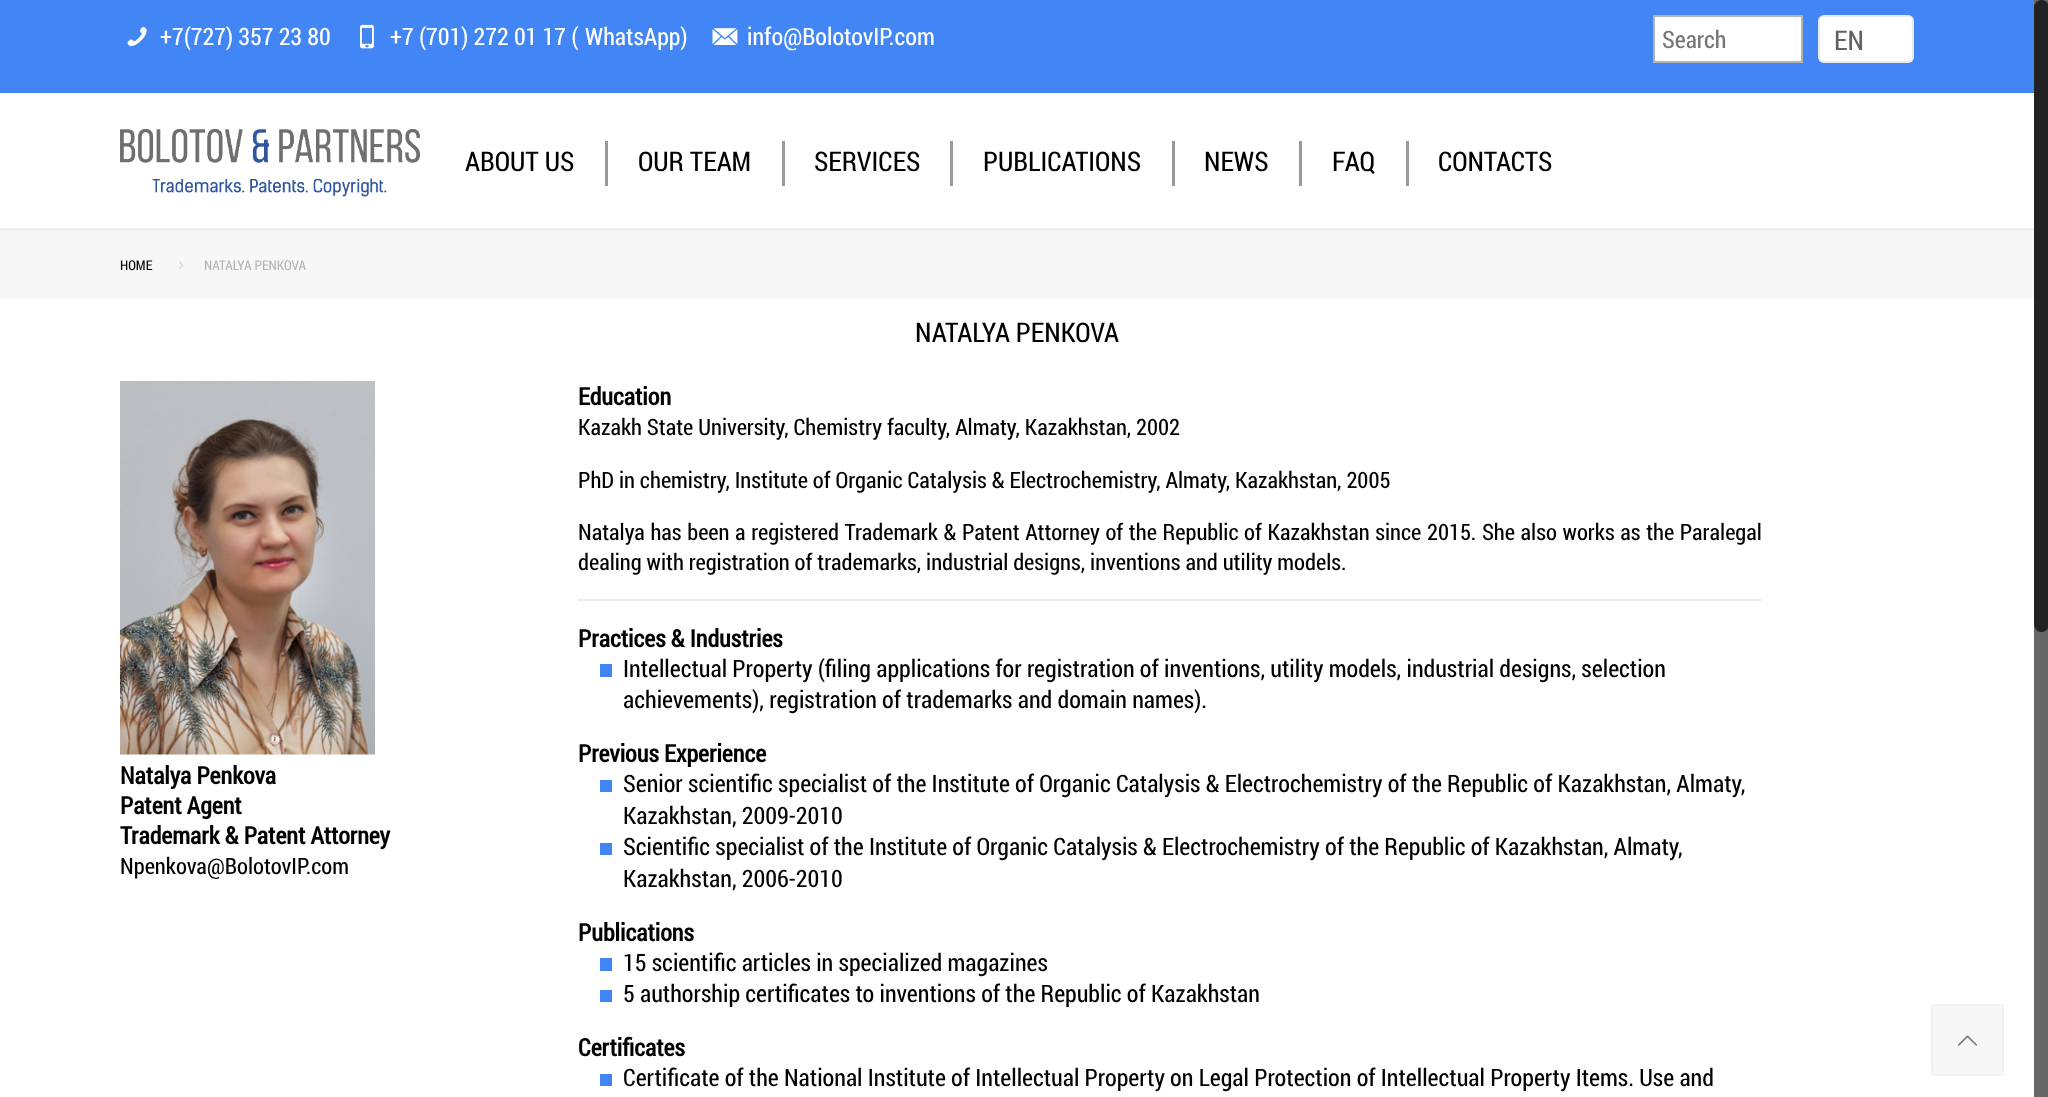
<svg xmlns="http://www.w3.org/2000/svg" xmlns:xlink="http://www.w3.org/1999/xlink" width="2048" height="1097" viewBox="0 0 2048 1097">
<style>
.cls-1{font:24px Roboto Condensed;fill:#ffffff}
.cls-2{font:24px Roboto Condensed;fill:#757575}
.cls-3{font:27px Roboto Condensed;fill:#626262}
.cls-4{font:27px Roboto Condensed;fill:#000000}
.cls-5{font:13.5px Roboto Condensed;fill:#000000}
.cls-6{font:13.5px Roboto Condensed;fill:#b4b4b4}
.cls-7{font:bold 24px Roboto Condensed;fill:#000000}
.cls-8{font:22.5px Roboto Condensed;fill:#000000}
.cls-9{font:24px Roboto Condensed;fill:#000000}
</style>
<rect width="100%" height="100%" fill="#ffffff"/>
<rect fill="#efefef" x="0" y="228" width="2034" height="3"/>
<rect fill="#4286f5" x="0" y="0" width="2034" height="93"/>
<image xlink:href="image0.png" x="127" y="27" width="20" height="20"/>
<image xlink:href="image1.png" x="360" y="24" width="14" height="25"/>
<image xlink:href="image2.png" x="712" y="28" width="26" height="17"/>
<rect fill="#ffffff" stroke="#b3b3b3" stroke-width="2" x="1654" y="16" width="148" height="46"/>
<rect fill="#ffffff" x="1818" y="15" width="96" height="48" rx="6"/>
<rect fill="none" stroke="#000000" stroke-opacity="0.08" stroke-width="2" x="1819" y="16" width="94" height="46" rx="5"/>
<image xlink:href="image3.png" x="120" y="129" width="300" height="68"/>
<rect fill="#999999" x="605" y="141" width="3" height="45"/>
<rect fill="#999999" x="782" y="141" width="3" height="45"/>
<rect fill="#999999" x="950" y="141" width="3" height="45"/>
<rect fill="#999999" x="1172" y="141" width="3" height="45"/>
<rect fill="#999999" x="1299" y="141" width="3" height="45"/>
<rect fill="#999999" x="1406" y="141" width="3" height="45"/>
<rect fill="#f7f7f7" x="0" y="231" width="2034" height="68"/>
<image xlink:href="image4.png" x="179" y="261" width="5" height="8"/>
<image xlink:href="image5.png" x="120" y="381" width="255" height="374"/>
<rect fill="#ebebeb" x="578" y="599" width="1183" height="2"/>
<rect fill="#4286f5" x="600" y="664" width="12" height="13"/>
<rect fill="#4286f5" x="600" y="780" width="12" height="12"/>
<rect fill="#4286f5" x="600" y="843" width="12" height="12"/>
<rect fill="#4286f5" x="600" y="958" width="12" height="13"/>
<rect fill="#4286f5" x="600" y="990" width="12" height="12"/>
<rect fill="#4286f5" x="600" y="1074" width="12" height="12"/>
<rect fill="#f7f7f7" x="1931" y="1004" width="73" height="72" rx="8"/>
<rect fill="none" stroke="#000000" stroke-opacity="0.03" stroke-width="2" x="1932" y="1005" width="71" height="70"/>
<image xlink:href="image6.png" x="1957" y="1035" width="21" height="11"/>
<rect fill="#666666" x="2034" y="0" width="14" height="1097"/>
<rect fill="#222222" x="2034" y="0" width="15" height="632" rx="7.5"/>
<text class="cls-1" x="160" y="45">+7(727) 357 23 80</text>
<text class="cls-1" x="390" y="45">+7 (701) 272 01 17 (</text>
<text class="cls-1" x="585" y="45">WhatsApp)</text>
<text class="cls-1" x="747" y="45">info@BolotovIP.com</text>
<text class="cls-2" x="1662" y="48">Search</text>
<text class="cls-3" x="1834" y="50">EN</text>
<text class="cls-4" x="465" y="171">ABOUT US</text>
<text class="cls-4" x="638" y="171">OUR TEAM</text>
<text class="cls-4" x="814" y="171">SERVICES</text>
<text class="cls-4" x="983" y="171">PUBLICATIONS</text>
<text class="cls-4" x="1204" y="171">NEWS</text>
<text class="cls-4" x="1332" y="171">FAQ</text>
<text class="cls-4" x="1438" y="171">CONTACTS</text>
<text class="cls-5" x="120" y="270">HOME</text>
<text class="cls-6" x="204" y="270">NATALYA PENKOVA</text>
<text class="cls-4" x="915" y="342">NATALYA PENKOVA</text>
<text class="cls-7"><tspan x="120" y="784">Natalya Penkova</tspan><tspan x="120" y="814">Patent Agent</tspan><tspan x="120" y="844">Trademark &amp; Patent Attorney</tspan></text>
<text class="cls-8" x="120" y="874">Npenkova@BolotovIP.com</text>
<text class="cls-7" x="578" y="405">Education</text>
<text class="cls-8" x="578" y="435">Kazakh State University, Chemistry faculty, Almaty, Kazakhstan, 2002</text>
<text class="cls-8" x="578" y="488">PhD in chemistry, Institute of Organic Catalysis &amp; Electrochemistry, Almaty, Kazakhstan, 2005</text>
<text class="cls-8"><tspan x="578" y="540" word-spacing="0.7">Natalya has been a registered Trademark &amp; Patent Attorney of the Republic of Kazakhstan since 2015. She also works as the Paralegal</tspan><tspan x="578" y="570">dealing with registration of trademarks, industrial designs, inventions and utility models.</tspan></text>
<text class="cls-7" x="578" y="647">Practices &amp; Industries</text>
<text class="cls-9"><tspan x="623" y="677">Intellectual Property (filing applications for registration of inventions, utility models, industrial designs, selection</tspan><tspan x="623" y="708">achievements), registration of trademarks and domain names).</tspan></text>
<text class="cls-7" x="578" y="762">Previous Experience</text>
<text class="cls-9"><tspan x="623" y="792">Senior scientific specialist of the Institute of Organic Catalysis &amp; Electrochemistry of the Republic of Kazakhstan, Almaty,</tspan><tspan x="623" y="824">Kazakhstan, 2009-2010</tspan><tspan x="623" y="855">Scientific specialist of the Institute of Organic Catalysis &amp; Electrochemistry of the Republic of Kazakhstan, Almaty,</tspan><tspan x="623" y="887">Kazakhstan, 2006-2010</tspan></text>
<text class="cls-7" x="578" y="941">Publications</text>
<text class="cls-9"><tspan x="623" y="971">15 scientific articles in specialized magazines</tspan><tspan x="623" y="1002">5 authorship certificates to inventions of the Republic of Kazakhstan</tspan></text>
<text class="cls-7" x="578" y="1056">Certificates</text>
<text class="cls-9" x="623" y="1086">Certificate of the National Institute of Intellectual Property on Legal Protection of Intellectual Property Items. Use and</text>
</svg>
